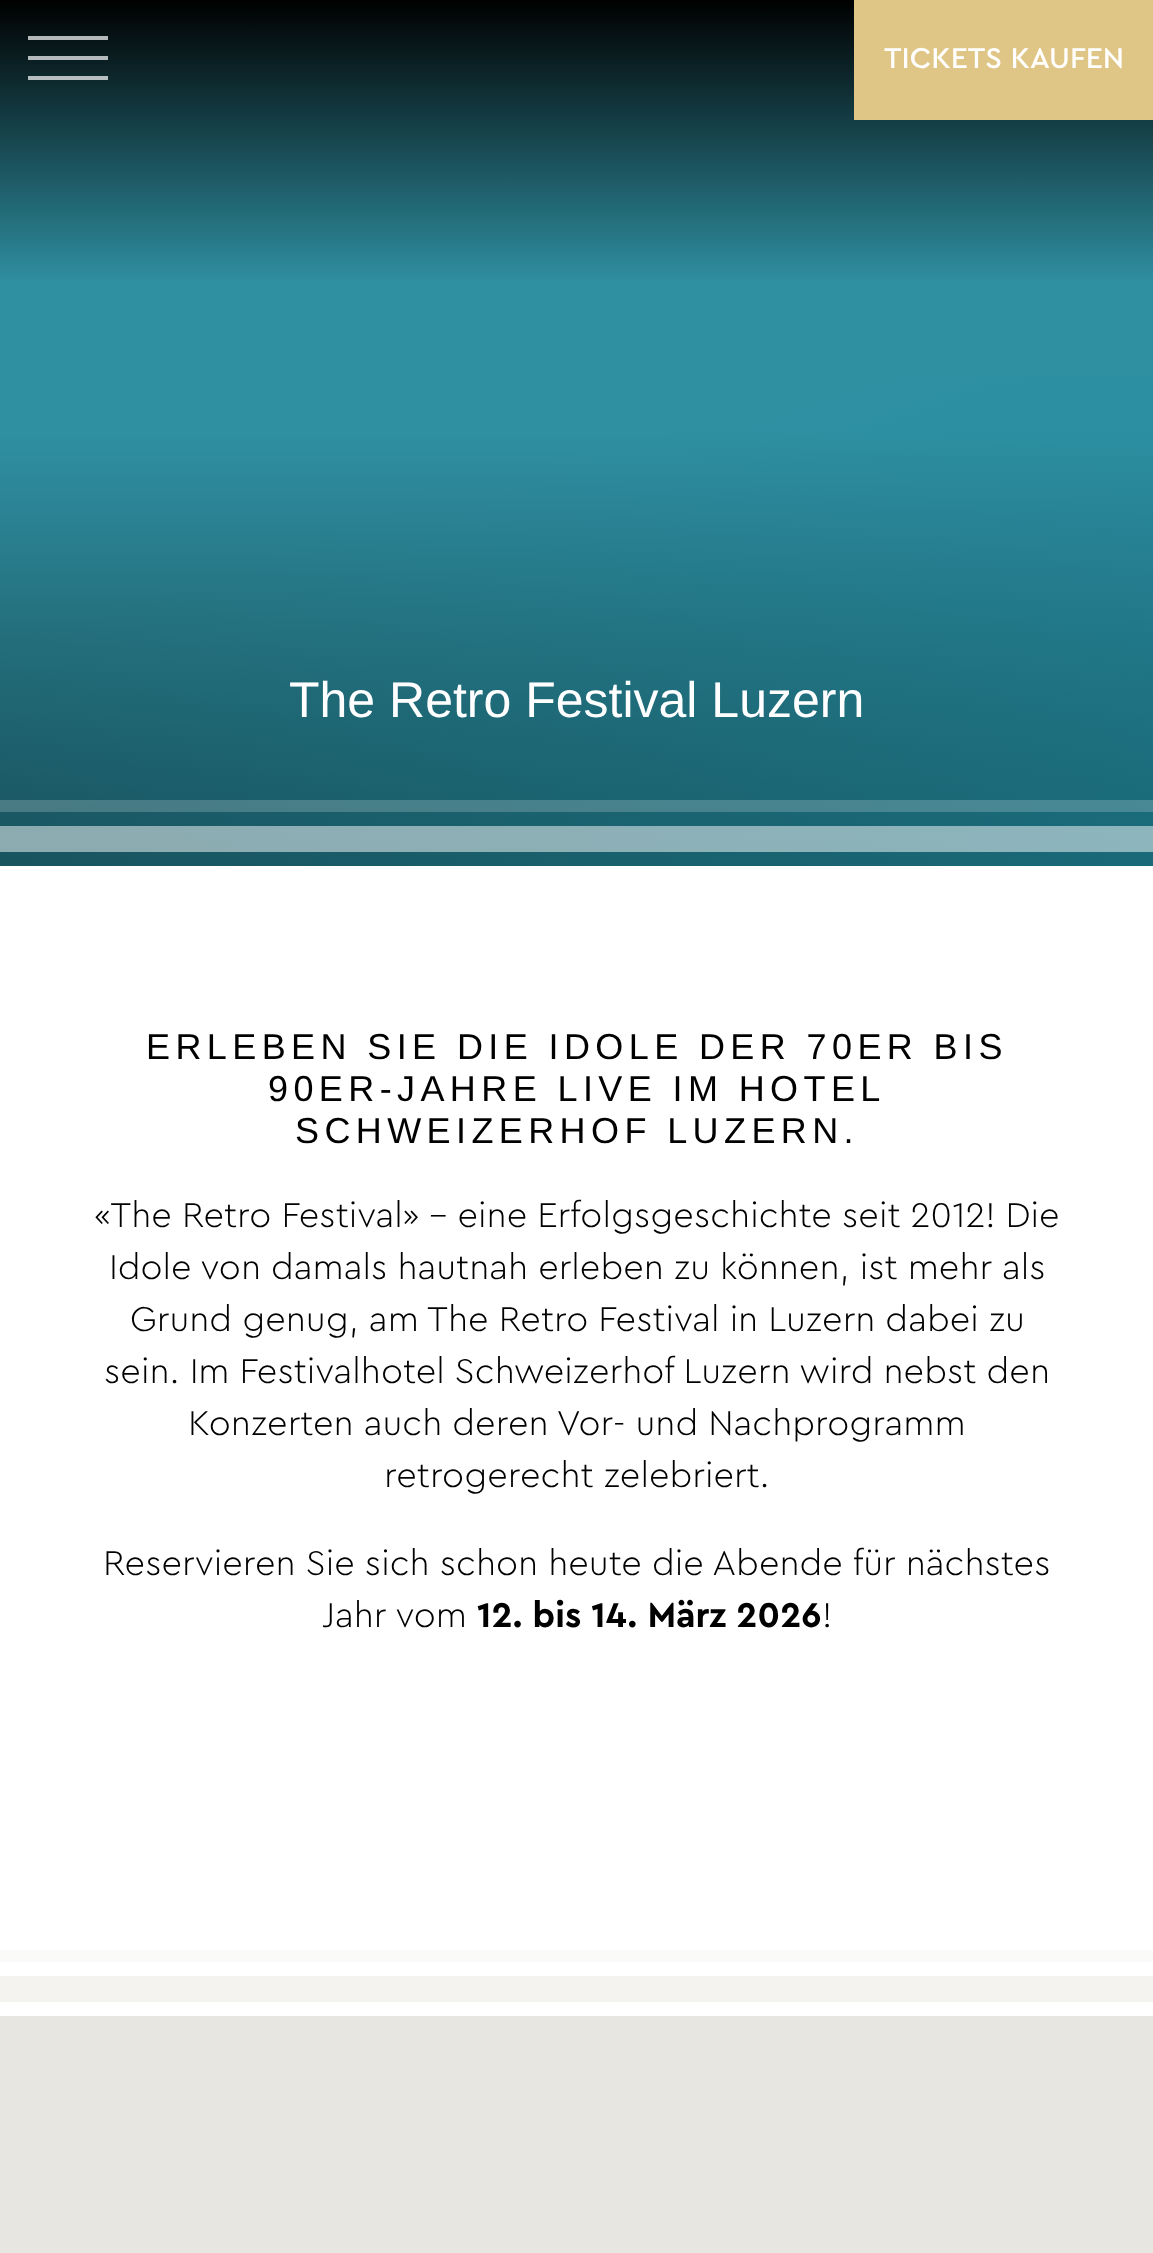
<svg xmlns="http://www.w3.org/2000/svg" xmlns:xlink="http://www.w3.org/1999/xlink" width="1153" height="2253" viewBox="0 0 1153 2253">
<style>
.cls-1{font:500 30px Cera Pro;fill:#ffffff}
.cls-2{font:50px Liberation Sans;fill:#ffffff}
.cls-3{font:36px Liberation Sans;letter-spacing:5.4px;fill:#000000}
.cls-4{font:300 36px Cera Pro;fill:#000000}
.cls-5{font:bold 36px Cera Pro;fill:#000000}
</style>
<defs>
<linearGradient id="g1" gradientUnits="userSpaceOnUse" x1="577" y1="866" x2="577" y2="0"><stop offset="0" stop-color="#174851"/><stop offset="0.5" stop-color="#2f90a2"/></linearGradient>
<linearGradient id="g2" gradientUnits="userSpaceOnUse" x1="577" y1="0" x2="577" y2="866"><stop offset="0" stop-color="#000000"/><stop offset="0.33" stop-color="#000000" stop-opacity="0"/></linearGradient>
<linearGradient id="g3" gradientUnits="userSpaceOnUse" x1="784" y1="1001" x2="370" y2="-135"><stop offset="0" stop-color="#1b8ba0" stop-opacity="0.5"/><stop offset="0.5" stop-color="#1b8ba0" stop-opacity="0"/></linearGradient>
</defs>
<rect width="100%" height="100%" fill="#ffffff"/>
<rect fill="url(#g1)" x="0" y="2" width="1153" height="864"/>
<rect fill="url(#g2)" x="0" y="0" width="1153" height="280"/>
<rect fill="#b5bbbc" x="28" y="56" width="80" height="4"/>
<rect fill="#b4b8b9" x="28" y="36" width="80" height="4"/>
<rect fill="#b6bec0" x="28" y="76" width="80" height="4"/>
<rect fill="#e0c686" x="854" y="0" width="299" height="120"/>
<rect fill="url(#g3)" x="0" y="377" width="1153" height="489"/>
<rect fill="#ffffff" fill-opacity="0.2" x="0" y="800" width="1153" height="12"/>
<rect fill="#ffffff" fill-opacity="0.5" x="0" y="826" width="1153" height="26"/>
<rect fill="#fafaf9" x="0" y="1950" width="1153" height="12"/>
<rect fill="#f4f3f0" x="0" y="1976" width="1153" height="26"/>
<rect fill="#e8e6e1" x="0" y="2016" width="1153" height="237"/>
<text class="cls-1" x="884" y="68">TICKETS KAUFEN</text>
<text class="cls-2" x="289" y="717">The Retro Festival Luzern</text>
<text class="cls-3" x="146" y="1059">ERLEBEN SIE DIE IDOLE DER 70ER BIS</text>
<text class="cls-3" x="268" y="1101">90ER-JAHRE LIVE IM HOTEL</text>
<text class="cls-3" x="295" y="1143">SCHWEIZERHOF LUZERN.</text>
<text class="cls-4" x="94" y="1227">«The Retro Festival» – eine Erfolgsgeschichte seit 2012! Die</text>
<text class="cls-4" x="109" y="1279">Idole von damals hautnah erleben zu können, ist mehr als</text>
<text class="cls-4" x="130" y="1331">Grund genug, am The Retro Festival in Luzern dabei zu</text>
<text class="cls-4" x="104" y="1383">sein. Im Festivalhotel Schweizerhof Luzern wird nebst den</text>
<text class="cls-4" x="188" y="1435">Konzerten auch deren Vor- und Nachprogramm</text>
<text class="cls-4" x="384" y="1487">retrogerecht zelebriert.</text>
<text class="cls-4" x="103" y="1575">Reservieren Sie sich schon heute die Abende für nächstes</text>
<text class="cls-4" x="322" y="1627">Jahr vom</text>
<text class="cls-5" x="477" y="1627">12. bis 14. März 2026</text>
<text class="cls-4" x="822" y="1627">!</text>
</svg>
